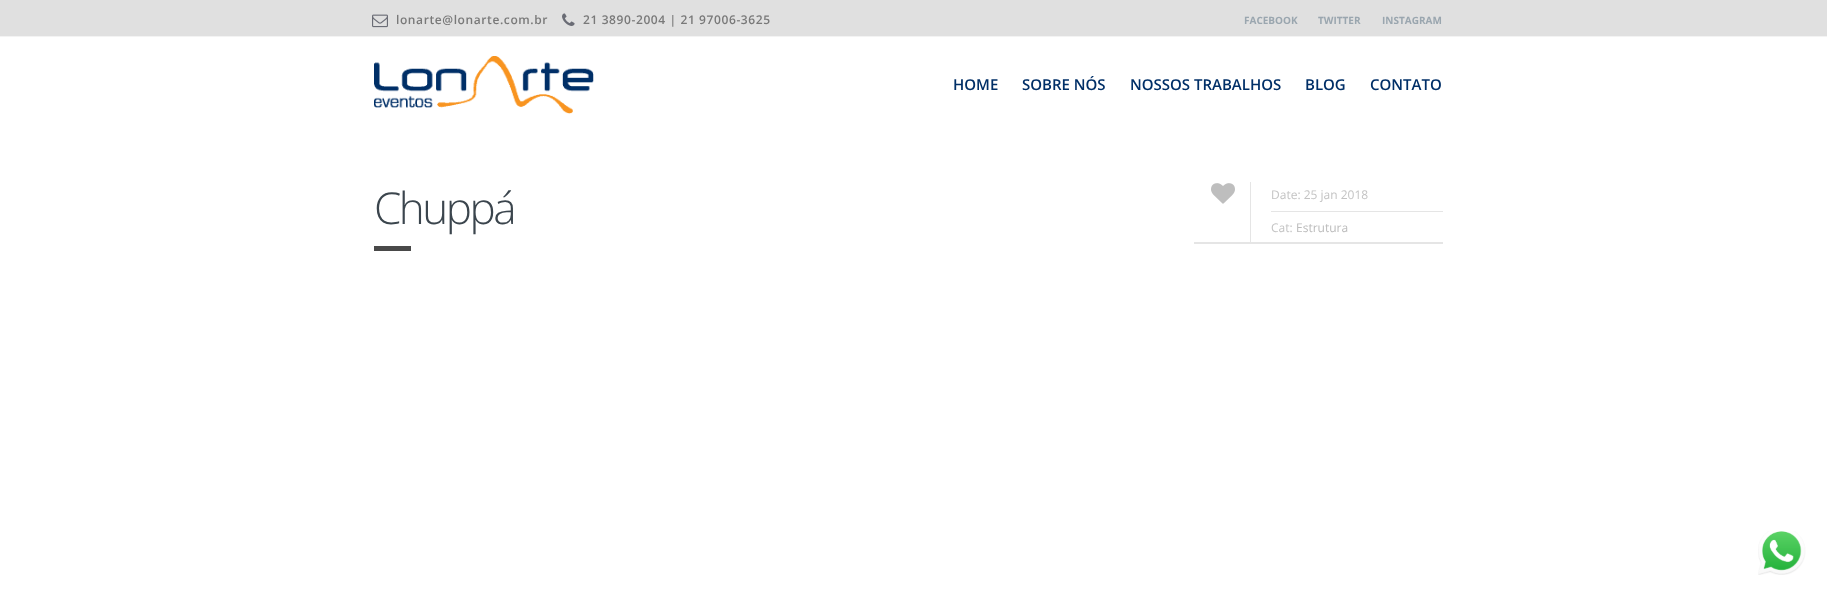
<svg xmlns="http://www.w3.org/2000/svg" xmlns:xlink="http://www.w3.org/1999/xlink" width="1827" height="597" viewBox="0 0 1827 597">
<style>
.cls-1{font:600 12px Open Sans;letter-spacing:0.6px;fill:#797979}
.cls-2{font:bold 10px Open Sans;fill:#9aa6af}
.cls-3{font:600 15px Open Sans;fill:#002f67}
.cls-4{font:300 44px Open Sans;letter-spacing:-2.5px;fill:#3b454d}
.cls-5{font:12px Open Sans;fill:#c3c3c3}
.cls-6{font:12px Open Sans;fill:#bbbbbb}
</style>
<rect width="100%" height="100%" fill="#ffffff"/>
<rect fill="#e0e0e0" x="0" y="0" width="1827" height="36"/>
<rect fill="#f3f3f3" x="0" y="36" width="1827" height="1"/>
<image xlink:href="image0.png" x="372" y="14" width="16" height="14"/>
<image xlink:href="image1.png" x="562" y="13" width="13" height="13"/>
<image xlink:href="image2.png" x="374" y="56" width="220" height="58"/>
<rect fill="#494949" x="374" y="246" width="37" height="5"/>
<rect fill="#e5e5e5" x="1194" y="242" width="249" height="2"/>
<image xlink:href="image3.png" x="1211" y="183" width="24" height="21"/>
<rect fill="#e5e5e5" x="1250" y="182" width="1" height="62"/>
<rect fill="#e5e5e5" x="1271" y="211" width="172" height="1"/>
<image xlink:href="image4.png" x="1758" y="531" width="48" height="44"/>
<text class="cls-1" x="396" y="24">lonarte@lonarte.com.br</text>
<text class="cls-1" x="583" y="24">21 3890-2004 | 21 97006-3625</text>
<text class="cls-2" x="1244" y="24">FACEBOOK</text>
<text class="cls-2" x="1318" y="24">TWITTER</text>
<text class="cls-2" x="1382" y="24">INSTAGRAM</text>
<text class="cls-3" x="953" y="90">HOME</text>
<text class="cls-3" x="1022" y="90">SOBRE NÓS</text>
<text class="cls-3" x="1130" y="90">NOSSOS TRABALHOS</text>
<text class="cls-3" x="1305" y="90">BLOG</text>
<text class="cls-3" x="1370" y="90">CONTATO</text>
<text class="cls-4" x="374" y="224">Chuppá</text>
<text class="cls-5" x="1271" y="199">Date: 25 jan 2018</text>
<text class="cls-5" x="1271" y="232">Cat:</text>
<text class="cls-6" x="1296" y="232">Estrutura</text>
</svg>
